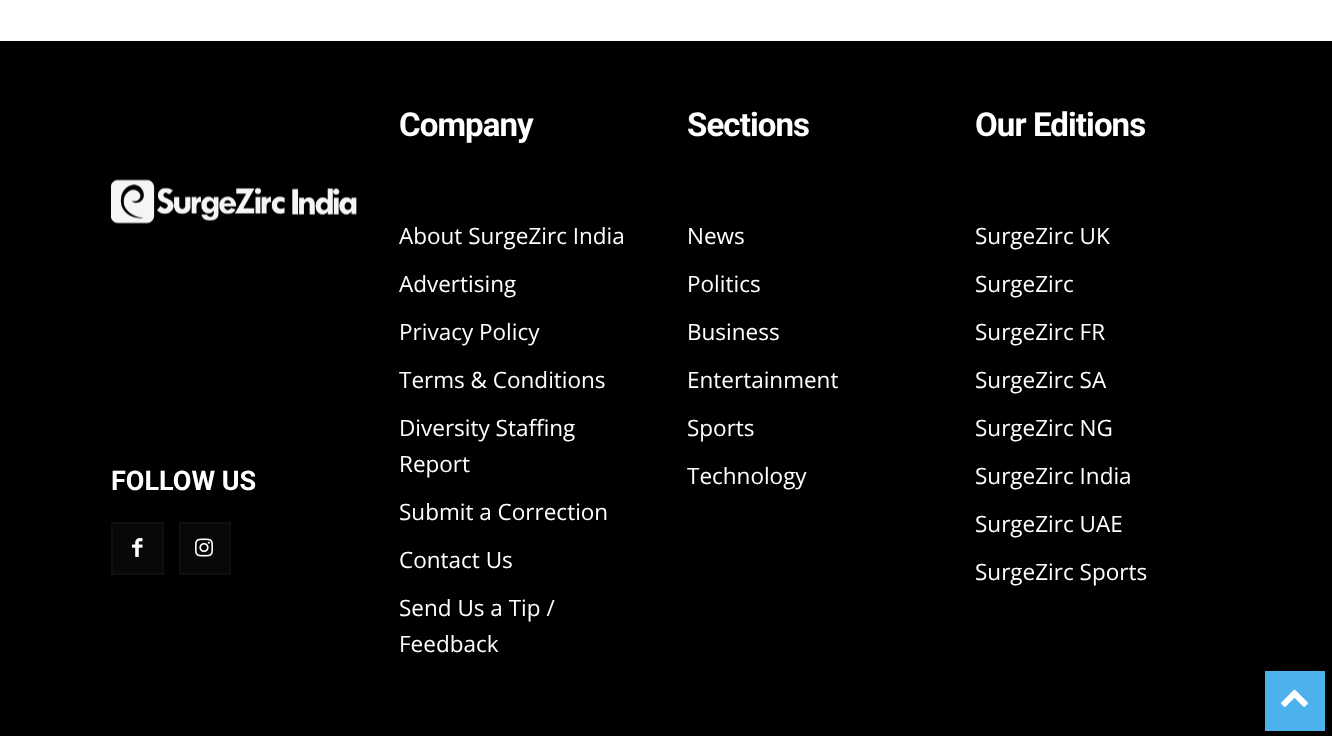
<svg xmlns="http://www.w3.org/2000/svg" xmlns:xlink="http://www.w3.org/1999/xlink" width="1332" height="736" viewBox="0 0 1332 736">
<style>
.cls-1{font:bold 27px Roboto;fill:#ffffff}
.cls-2{font:bold 33px Roboto;letter-spacing:-0.9px;fill:#ffffff}
.cls-3{font:22.5px Open Sans;fill:#ffffff}
</style>
<rect width="100%" height="100%" fill="#ffffff"/>
<rect fill="#000000" x="0" y="41" width="1332" height="695"/>
<image xlink:href="image0.png" x="111" y="179" width="246" height="45"/>
<rect fill="#080808" stroke="#0f0f0f" stroke-width="2" x="112" y="523" width="51" height="51"/>
<image xlink:href="image1.png" x="132" y="538" width="11" height="19"/>
<rect fill="#080808" stroke="#0f0f0f" stroke-width="2" x="180" y="523" width="50" height="51"/>
<image xlink:href="image2.png" x="195" y="538" width="18" height="19"/>
<rect fill="#4db2ec" x="1265" y="671" width="60" height="60"/>
<image xlink:href="image3.png" x="1281" y="689" width="27" height="18"/>
<text class="cls-1" x="111" y="490">FOLLOW US</text>
<text class="cls-2" x="399" y="136">Company</text>
<text class="cls-3" x="399" y="244">About SurgeZirc India</text>
<text class="cls-3" x="399" y="292">Advertising</text>
<text class="cls-3" x="399" y="340">Privacy Policy</text>
<text class="cls-3" x="399" y="388">Terms &amp; Conditions</text>
<text class="cls-3"><tspan x="399" y="436">Diversity Staffing</tspan><tspan x="399" y="472">Report</tspan></text>
<text class="cls-3" x="399" y="520">Submit a Correction</text>
<text class="cls-3" x="399" y="568">Contact Us</text>
<text class="cls-3"><tspan x="399" y="616">Send Us a Tip /</tspan><tspan x="399" y="652">Feedback</tspan></text>
<text class="cls-2" x="687" y="136">Sections</text>
<text class="cls-3" x="687" y="244">News</text>
<text class="cls-3" x="687" y="292">Politics</text>
<text class="cls-3" x="687" y="340">Business</text>
<text class="cls-3" x="687" y="388">Entertainment</text>
<text class="cls-3" x="687" y="436">Sports</text>
<text class="cls-3" x="687" y="484">Technology</text>
<text class="cls-2" x="975" y="136">Our Editions</text>
<text class="cls-3" x="975" y="244">SurgeZirc UK</text>
<text class="cls-3" x="975" y="292">SurgeZirc</text>
<text class="cls-3" x="975" y="340">SurgeZirc FR</text>
<text class="cls-3" x="975" y="388">SurgeZirc SA</text>
<text class="cls-3" x="975" y="436">SurgeZirc NG</text>
<text class="cls-3" x="975" y="484">SurgeZirc India</text>
<text class="cls-3" x="975" y="532">SurgeZirc UAE</text>
<text class="cls-3" x="975" y="580">SurgeZirc Sports</text>
</svg>
